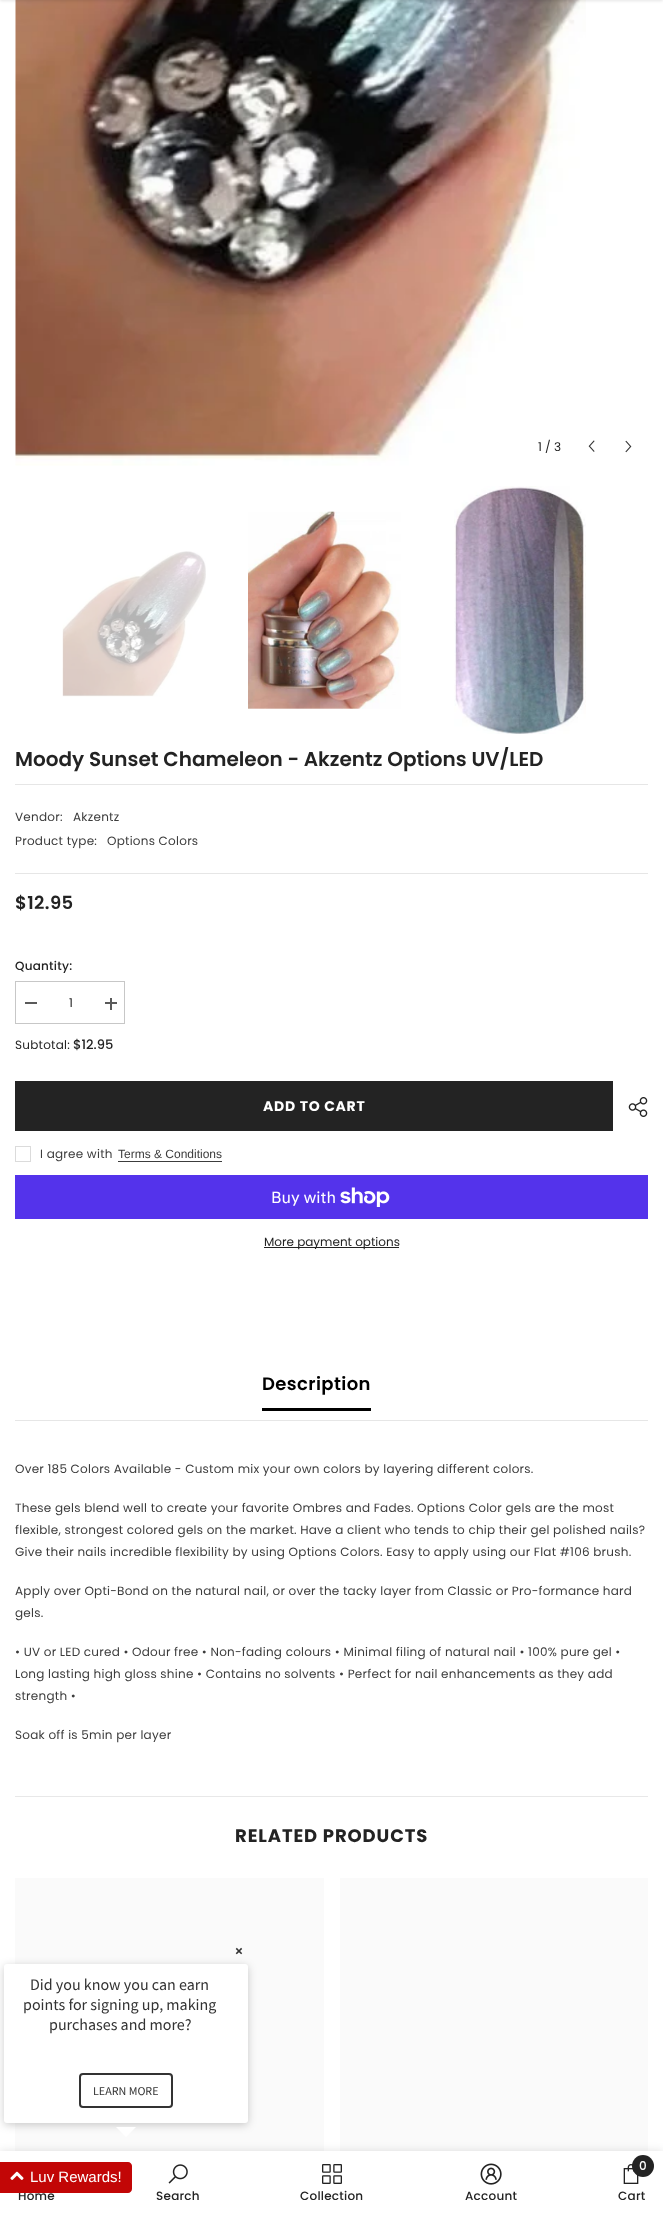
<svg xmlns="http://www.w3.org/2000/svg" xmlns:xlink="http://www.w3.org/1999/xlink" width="663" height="2213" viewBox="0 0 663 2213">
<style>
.cls-1{font:12px Poppins;fill:#232323}
.cls-2{font:600 20px Poppins;fill:#232323}
.cls-3{font:12px Poppins;letter-spacing:0.24px;fill:#3c3c3c}
.cls-4{font:600 18px Poppins;letter-spacing:0.4px;fill:#232323}
.cls-5{font:500 12px Poppins;letter-spacing:0.24px;fill:#232323}
.cls-6{font:12px Poppins;letter-spacing:0.24px;fill:#232323}
.cls-7{font:500 13px Poppins;fill:#232323}
.cls-8{font:bold 14px Poppins;letter-spacing:0.75px;fill:#ffffff}
.cls-9{font:12px Liberation Sans;fill:#3c3c3c}
.cls-10{font:16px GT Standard;fill:#ffffff}
.cls-11{font:600 18px Poppins;letter-spacing:0.4px;fill:#000000}
.cls-12{font:bold 18px Poppins;letter-spacing:0.9px;fill:#232323}
.cls-13{font:500 12px Poppins;fill:#ffffff}
.cls-14{font:bold 15px Source Sans Pro;fill:#333333}
.cls-15{font:16px Source Sans Pro;fill:#333333}
.cls-16{font:12px Source Sans Pro;fill:#333333}
.cls-17{font:15px Liberation Sans;fill:#ffffff}
</style>
<rect width="100%" height="100%" fill="#ffffff"/>
<image xlink:href="image0.png" x="15" y="0" width="571" height="466"/>
<rect fill="#000000" fill-opacity="0.1" filter="blur(1.5px)" x="0" y="-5" width="663" height="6"/>
<image xlink:href="image1.png" x="588" y="440" width="7" height="12"/>
<image xlink:href="image2.png" x="625" y="440" width="7" height="13"/>
<image xlink:href="image3.png" x="62" y="551" width="144" height="146"/>
<image xlink:href="image4.png" x="248" y="511" width="153" height="198"/>
<image xlink:href="image5.png" x="454" y="486" width="132" height="248"/>
<rect fill="#e6e6e6" x="15" y="784" width="633" height="1"/>
<rect fill="#e6e6e6" x="15" y="873" width="633" height="1"/>
<rect fill="none" stroke="#c7c7c7" x="15.5" y="981.5" width="109" height="42"/>
<rect fill="#5a5a5a" x="25" y="1002" width="12" height="2"/>
<rect fill="#5a5a5a" x="105" y="1002" width="12" height="2"/>
<rect fill="#5a5a5a" x="110" y="998" width="2" height="12"/>
<rect fill="#232323" x="15" y="1081" width="598" height="50"/>
<image xlink:href="image6.png" x="628" y="1097" width="20" height="20"/>
<rect fill="none" stroke="#dbdbdb" x="15.5" y="1146.5" width="15" height="15"/>
<rect fill="#3c3c3c" x="118" y="1161" width="104" height="1"/>
<rect fill="#5433eb" x="15" y="1175" width="633" height="44"/>
<image xlink:href="image7.png" x="340" y="1187" width="50" height="20"/>
<rect fill="#232323" x="264" y="1247" width="135" height="1"/>
<rect fill="#e6e6e6" x="15" y="1420" width="633" height="1"/>
<rect fill="#000000" x="262" y="1408" width="109" height="3"/>
<rect fill="#e8e8e8" x="15" y="1796" width="633" height="1"/>
<rect fill="#fafafa" x="15" y="1878" width="309" height="273"/>
<rect fill="#fafafa" x="340" y="1878" width="308" height="273"/>
<rect fill="#000000" fill-opacity="0.12" filter="blur(4.5px)" x="0" y="2151" width="663" height="62"/>
<rect fill="#ffffff" x="0" y="2151" width="663" height="62"/>
<image xlink:href="image8.png" x="168" y="2164" width="20" height="20"/>
<image xlink:href="image9.png" x="322" y="2164" width="20" height="20"/>
<image xlink:href="image10.png" x="480" y="2163" width="22" height="22"/>
<image xlink:href="image11.png" x="623" y="2164" width="16" height="20"/>
<circle fill="#232323" cx="643" cy="2166" r="11"/>
<rect fill="#000000" fill-opacity="0.2" filter="blur(4px)" x="4" y="1966" width="244" height="159" rx="3"/>
<rect fill="#ffffff" x="4" y="1964" width="244" height="159" rx="3"/>
<rect fill="none" stroke="#333333" stroke-width="2" x="80" y="2074" width="92" height="33" rx="3"/>
<path fill="#ffffff" d="M116 2127H136L126 2137Z"/>
<text class="cls-1" x="538" y="451">1 / 3</text>
<text class="cls-2" x="15" y="766">Moody Sunset Chameleon - Akzentz Options UV/LED</text>
<text class="cls-3" x="15" y="821">Vendor:</text>
<text class="cls-3" x="73" y="821">Akzentz</text>
<text class="cls-3" x="15" y="845">Product type:</text>
<text class="cls-3" x="107" y="845">Options Colors</text>
<text class="cls-4" x="15" y="909">$12.95</text>
<text class="cls-5" x="15" y="970">Quantity:</text>
<text class="cls-6" x="69" y="1007">1</text>
<text class="cls-6" x="15" y="1049">Subtotal:</text>
<text class="cls-7" x="73" y="1049">$12.95</text>
<text class="cls-8" x="263" y="1111">ADD TO CART</text>
<text class="cls-3" x="40" y="1158">I agree with</text>
<text class="cls-9" x="118" y="1158">Terms &amp; Conditions</text>
<text class="cls-10" x="271" y="1203">Buy with</text>
<text class="cls-1" x="264" y="1246">More payment options</text>
<text class="cls-11" x="262" y="1390">Description</text>
<text class="cls-3" x="15" y="1473">Over 185 Colors Available - Custom mix your own colors by layering different colors.</text>
<text class="cls-3"><tspan x="15" y="1512">These gels blend well to create your favorite Ombres and Fades. Options Color gels are the most</tspan><tspan x="15" y="1534">flexible, strongest colored gels on the market. Have a client who tends to chip their gel polished nails?</tspan><tspan x="15" y="1556">Give their nails incredible flexibility by using Options Colors. Easy to apply using our Flat #106 brush.</tspan></text>
<text class="cls-3"><tspan x="15" y="1595">Apply over Opti-Bond on the natural nail, or over the tacky layer from Classic or Pro-formance hard</tspan><tspan x="15" y="1617">gels.</tspan></text>
<text class="cls-3"><tspan x="15" y="1656">• UV or LED cured • Odour free • Non-fading colours • Minimal filing of natural nail • 100% pure gel •</tspan><tspan x="15" y="1678">Long lasting high gloss shine • Contains no solvents • Perfect for nail enhancements as they add</tspan><tspan x="15" y="1700">strength •</tspan></text>
<text class="cls-3" x="15" y="1739">Soak off is 5min per layer</text>
<text class="cls-12" x="235" y="1842">RELATED PRODUCTS</text>
<text class="cls-5" x="18" y="2200">Home</text>
<text class="cls-5" x="156" y="2200">Search</text>
<text class="cls-5" x="300" y="2200">Collection</text>
<text class="cls-5" x="465" y="2200">Account</text>
<text class="cls-13" x="639" y="2170">0</text>
<text class="cls-5" x="618" y="2200">Cart</text>
<text class="cls-14" x="235" y="1956">×</text>
<text class="cls-15" x="30" y="1990">Did you know you can earn</text>
<text class="cls-15" x="23" y="2010">points for signing up, making</text>
<text class="cls-15" x="49" y="2030">purchases and more?</text>
<text class="cls-16" x="93" y="2095">LEARN MORE</text>
<path fill="#c20606" d="M0 2162H128C130 2162 132 2164 132 2166V2189C132 2191 130 2193 128 2193H0Z"/>
<image xlink:href="image12.png" x="10" y="2171" width="14" height="9"/>
<text class="cls-17" x="30" y="2182">Luv Rewards!</text>
</svg>
